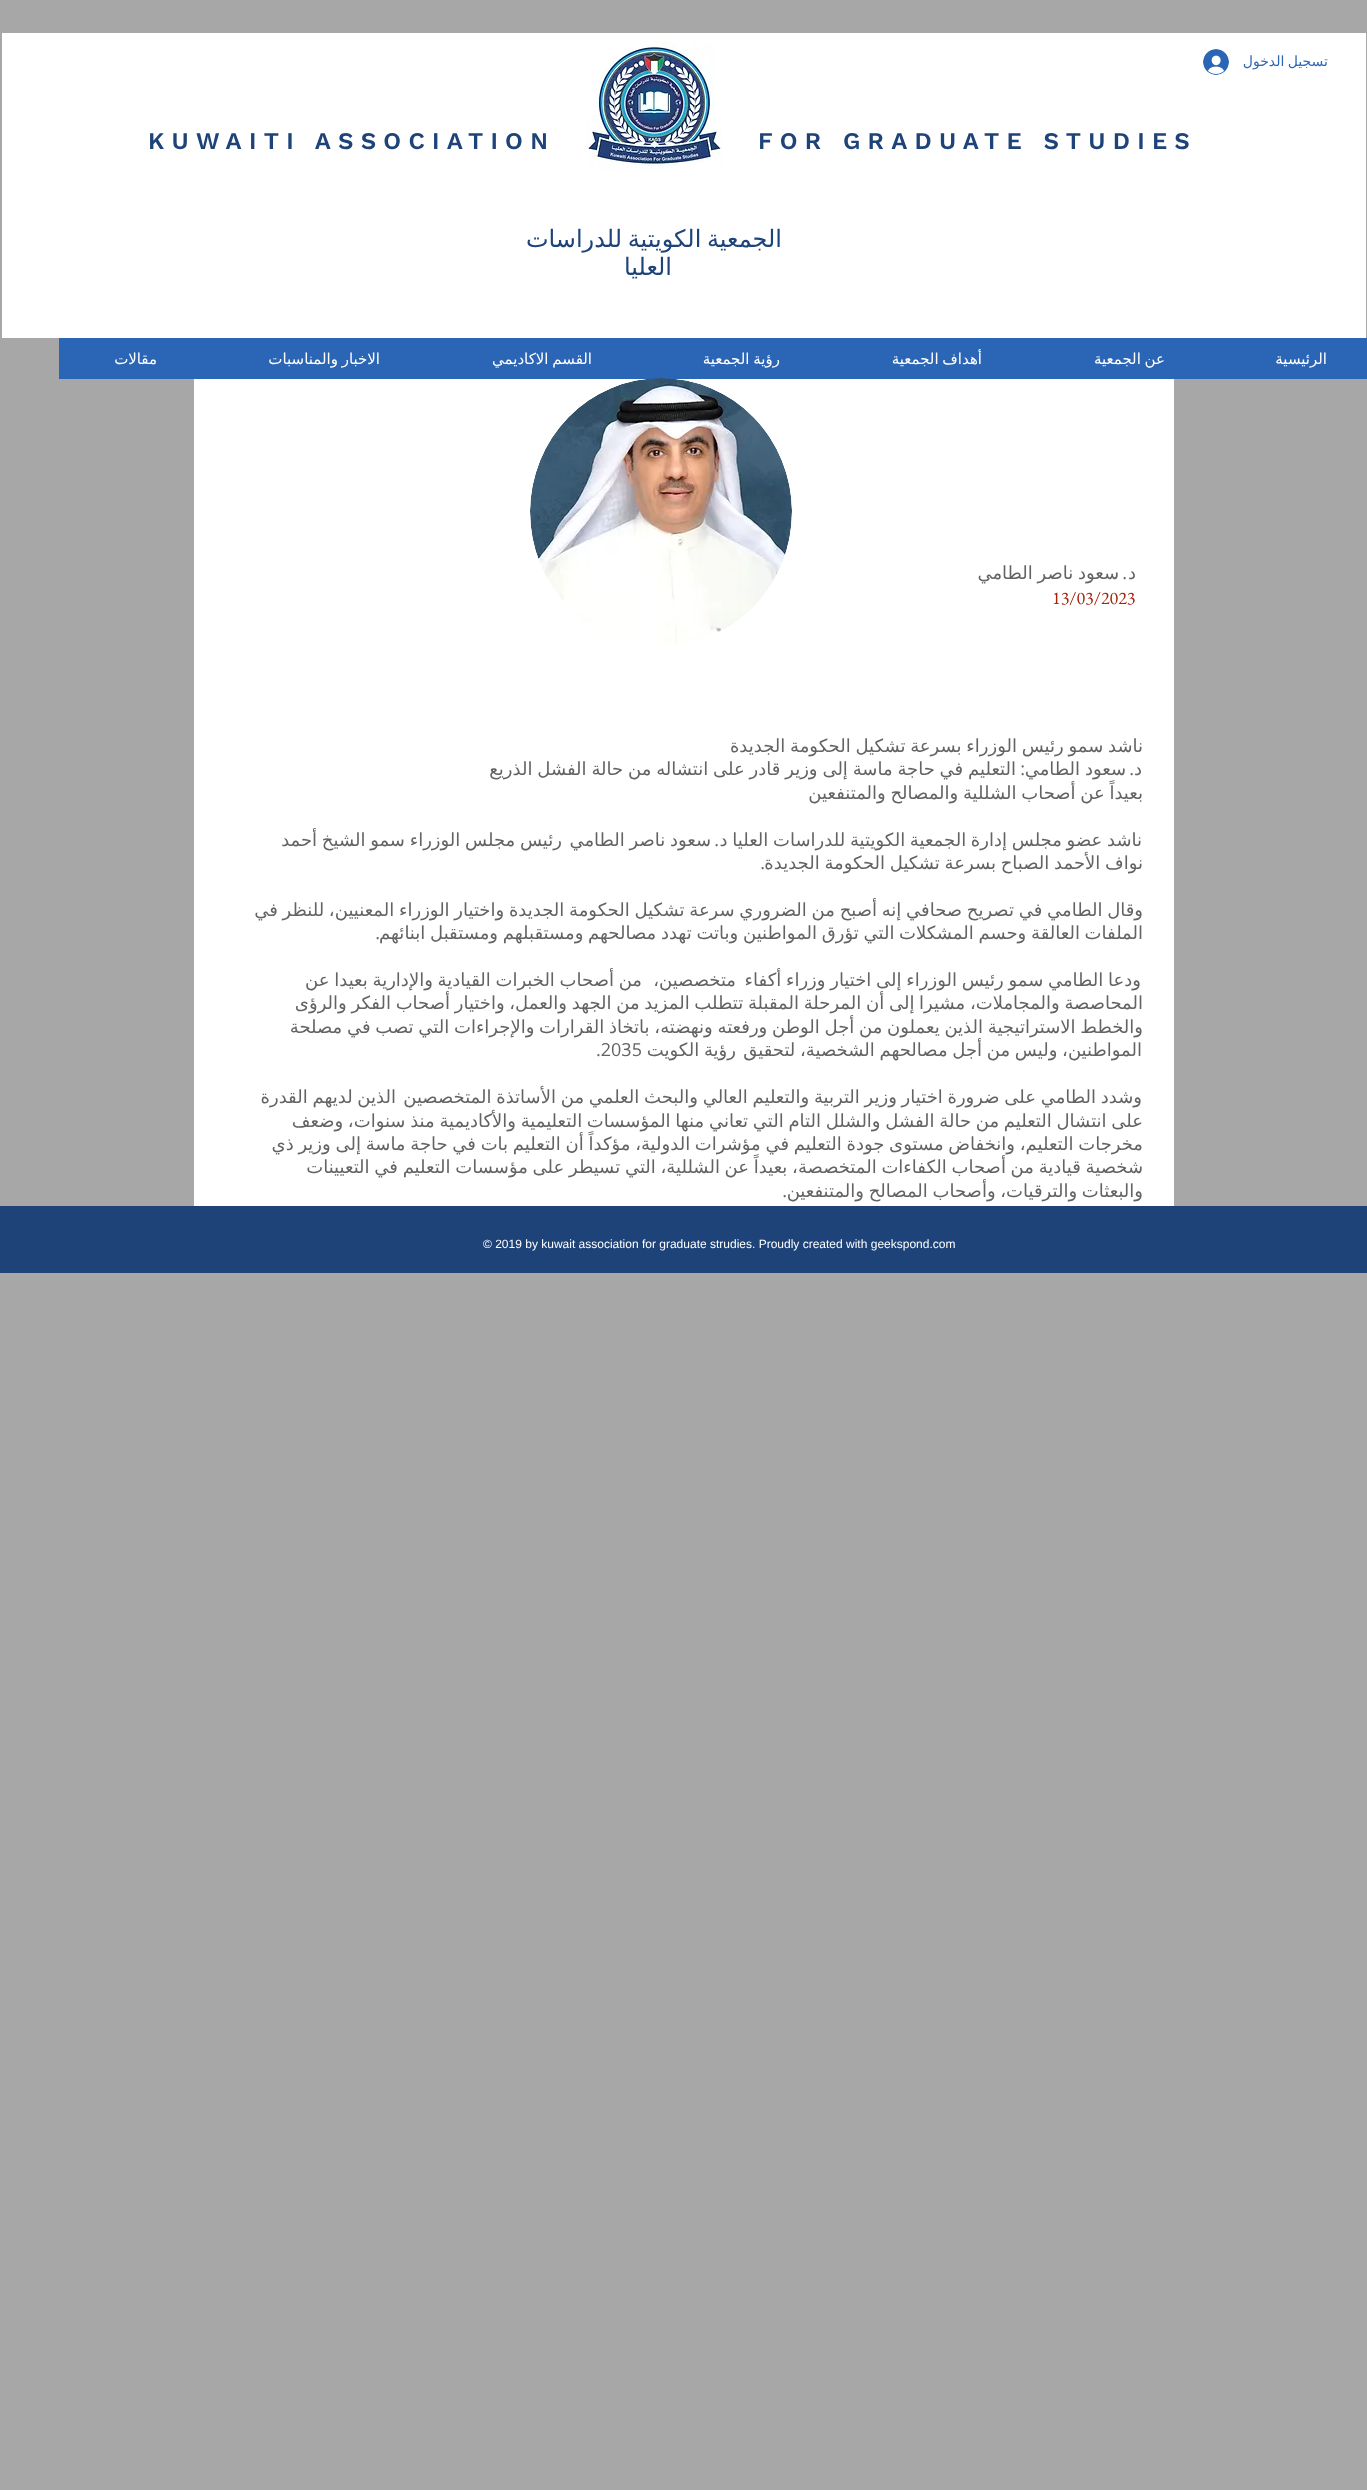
<svg xmlns="http://www.w3.org/2000/svg" xmlns:xlink="http://www.w3.org/1999/xlink" width="1367" height="2490" viewBox="0 0 1367 2490">
<style>
.cls-1{font:14px DejaVu Sans;direction:rtl;fill:#2b65b5}
.cls-2{font:600 24px Work Sans;letter-spacing:7.25px;fill:#1d4379}
.cls-3{font:24px DejaVu Sans;direction:rtl;fill:#1d4379}
.cls-4{font:15px DejaVu Sans;direction:rtl;fill:#ffffff}
.cls-5{font:18px DejaVu Sans;direction:rtl;fill:#636363}
.cls-6{font:18px Open Sans;direction:rtl;fill:#636363}
.cls-7{font:18px EB Garamond;fill:#a2230a}
.cls-8{font:18px Open Sans;fill:#636363}
.cls-9{font:12px Liberation Sans;fill:#ffffff}
</style>
<rect width="100%" height="100%" fill="#a7a7a7"/>
<rect fill="#ffffff" x="2" y="33" width="1364" height="305"/>
<image xlink:href="image0.png" x="1203" y="49" width="26" height="26"/>
<image xlink:href="image1.png" x="586" y="42" width="136" height="128"/>
<rect fill="#2b65b5" x="59" y="338" width="1308" height="41"/>
<rect fill="#ffffff" x="194" y="379" width="980" height="827"/>
<image xlink:href="image2.png" x="530" y="378" width="262" height="268"/>
<rect fill="#1d4379" x="0" y="1206" width="1367" height="67"/>
<text class="cls-1" x="1328" y="66" word-spacing="-1">تسجيل الدخول</text>
<text class="cls-2" x="758" y="149">FOR GRADUATE STUDIES</text>
<text class="cls-2" x="148" y="149">KUWAITI ASSOCIATION</text>
<text class="cls-3" x="782" y="247" word-spacing="-2">الجمعية الكويتية للدراسات</text>
<text class="cls-3" x="672" y="275">العليا</text>
<text class="cls-4" x="1327" y="364">الرئيسية</text>
<text class="cls-4" x="1165" y="364" word-spacing="-1">عن الجمعية</text>
<text class="cls-4" x="982" y="364" word-spacing="-1">أهداف الجمعية</text>
<text class="cls-4" x="780" y="364" word-spacing="-1">رؤية الجمعية</text>
<text class="cls-4" x="592" y="364" word-spacing="-1">القسم الاكاديمي</text>
<text class="cls-4" x="380" y="364" word-spacing="-1">الاخبار والمناسبات</text>
<text class="cls-4" x="157" y="364">مقالات</text>
<text class="cls-5" x="1136" y="579">د</text>
<text class="cls-6" x="1127" y="579">.</text>
<text class="cls-5" x="1119" y="579" word-spacing="-1">سعود ناصر الطامي</text>
<text class="cls-7" x="1052" y="604">13/03/2023</text>
<text class="cls-5" x="1143" y="752" word-spacing="-1">ناشد سمو رئيس الوزراء بسرعة تشكيل الحكومة الجديدة</text>
<text class="cls-5" x="1142" y="775">د</text>
<text class="cls-6" x="1134" y="775">.</text>
<text class="cls-5" x="1126" y="775" word-spacing="-0.9">سعود الطامي</text>
<text class="cls-6" x="1025" y="775">:</text>
<text class="cls-5" x="1016" y="775" word-spacing="-0.9">التعليم في حاجة ماسة إلى وزير قادر على انتشاله من حالة الفشل الذريع</text>
<text class="cls-5" x="1143" y="799" word-spacing="-1">بعيداً عن أصحاب الشللية والمصالح والمتنفعين</text>
<text class="cls-5" x="1142" y="846" word-spacing="-1">ناشد عضو مجلس إدارة الجمعية الكويتية للدراسات العليا د</text>
<text class="cls-6" x="719" y="846">.</text>
<text class="cls-5" x="711" y="846" word-spacing="-1">سعود ناصر الطامي</text>
<text class="cls-5" x="562" y="846" word-spacing="-1">رئيس مجلس الوزراء سمو الشيخ أحمد</text>
<text class="cls-5" x="1143" y="869" word-spacing="-1">نواف الأحمد الصباح بسرعة تشكيل الحكومة الجديدة</text>
<text class="cls-6" x="765" y="869">.</text>
<text class="cls-5"><tspan x="1143" y="916" word-spacing="-1">وقال الطامي في تصريح صحافي إنه أصبح من الضروري سرعة تشكيل الحكومة الجديدة واختيار الوزراء المعنيين، للنظر في</tspan><tspan x="1143" y="939" word-spacing="-1">الملفات العالقة وحسم المشكلات التي تؤرق المواطنين وباتت تهدد مصالحهم ومستقبلهم ومستقبل ابنائهم</tspan></text>
<text class="cls-6" x="380" y="939">.</text>
<text class="cls-5" x="1141" y="986" word-spacing="-1">ودعا الطامي سمو رئيس الوزراء إلى اختيار وزراء أكفاء</text>
<text class="cls-5" x="736" y="986">متخصصين،</text>
<text class="cls-5" x="642" y="986" word-spacing="-1">من أصحاب الخبرات القيادية والإدارية بعيدا عن</text>
<text class="cls-5"><tspan x="1143" y="1009" word-spacing="-1">المحاصصة والمجاملات، مشيرا إلى أن المرحلة المقبلة تتطلب المزيد من الجهد والعمل، واختيار أصحاب الفكر والرؤى</tspan><tspan x="1143" y="1033" word-spacing="-1">والخطط الاستراتيجية الذين يعملون من أجل الوطن ورفعته ونهضته، باتخاذ القرارات والإجراءات التي تصب في مصلحة</tspan></text>
<text class="cls-5" x="1142" y="1056" word-spacing="-1">المواطنين، وليس من أجل مصالحهم الشخصية، لتحقيق</text>
<text class="cls-5" x="736" y="1056" word-spacing="-1">رؤية الكويت</text>
<text class="cls-8" x="596" y="1056">.2035</text>
<text class="cls-5" x="1142" y="1103" word-spacing="-1">وشدد الطامي على ضرورة اختيار وزير التربية والتعليم العالي والبحث العلمي من الأساتذة المتخصصين</text>
<text class="cls-5" x="396" y="1103" word-spacing="-1">الذين لديهم القدرة</text>
<text class="cls-5"><tspan x="1143" y="1127" word-spacing="-1">على انتشال التعليم من حالة الفشل والشلل التام التي تعاني منها المؤسسات التعليمية والأكاديمية منذ سنوات، وضعف</tspan><tspan x="1143" y="1150" word-spacing="-1">مخرجات التعليم، وانخفاض مستوى جودة التعليم في مؤشرات الدولية، مؤكداً أن التعليم بات في حاجة ماسة إلى وزير ذي</tspan><tspan x="1143" y="1173" word-spacing="-1">شخصية قيادية من أصحاب الكفاءات المتخصصة، بعيداً عن الشللية، التي تسيطر على مؤسسات التعليم في التعيينات</tspan><tspan x="1143" y="1197" word-spacing="-1">والبعثات والترقيات، وأصحاب المصالح والمتنفعين</tspan></text>
<text class="cls-6" x="787" y="1197">.</text>
<text class="cls-9" x="483" y="1248">© 2019 by kuwait association for graduate strudies. Proudly created with geekspond.com</text>
</svg>
